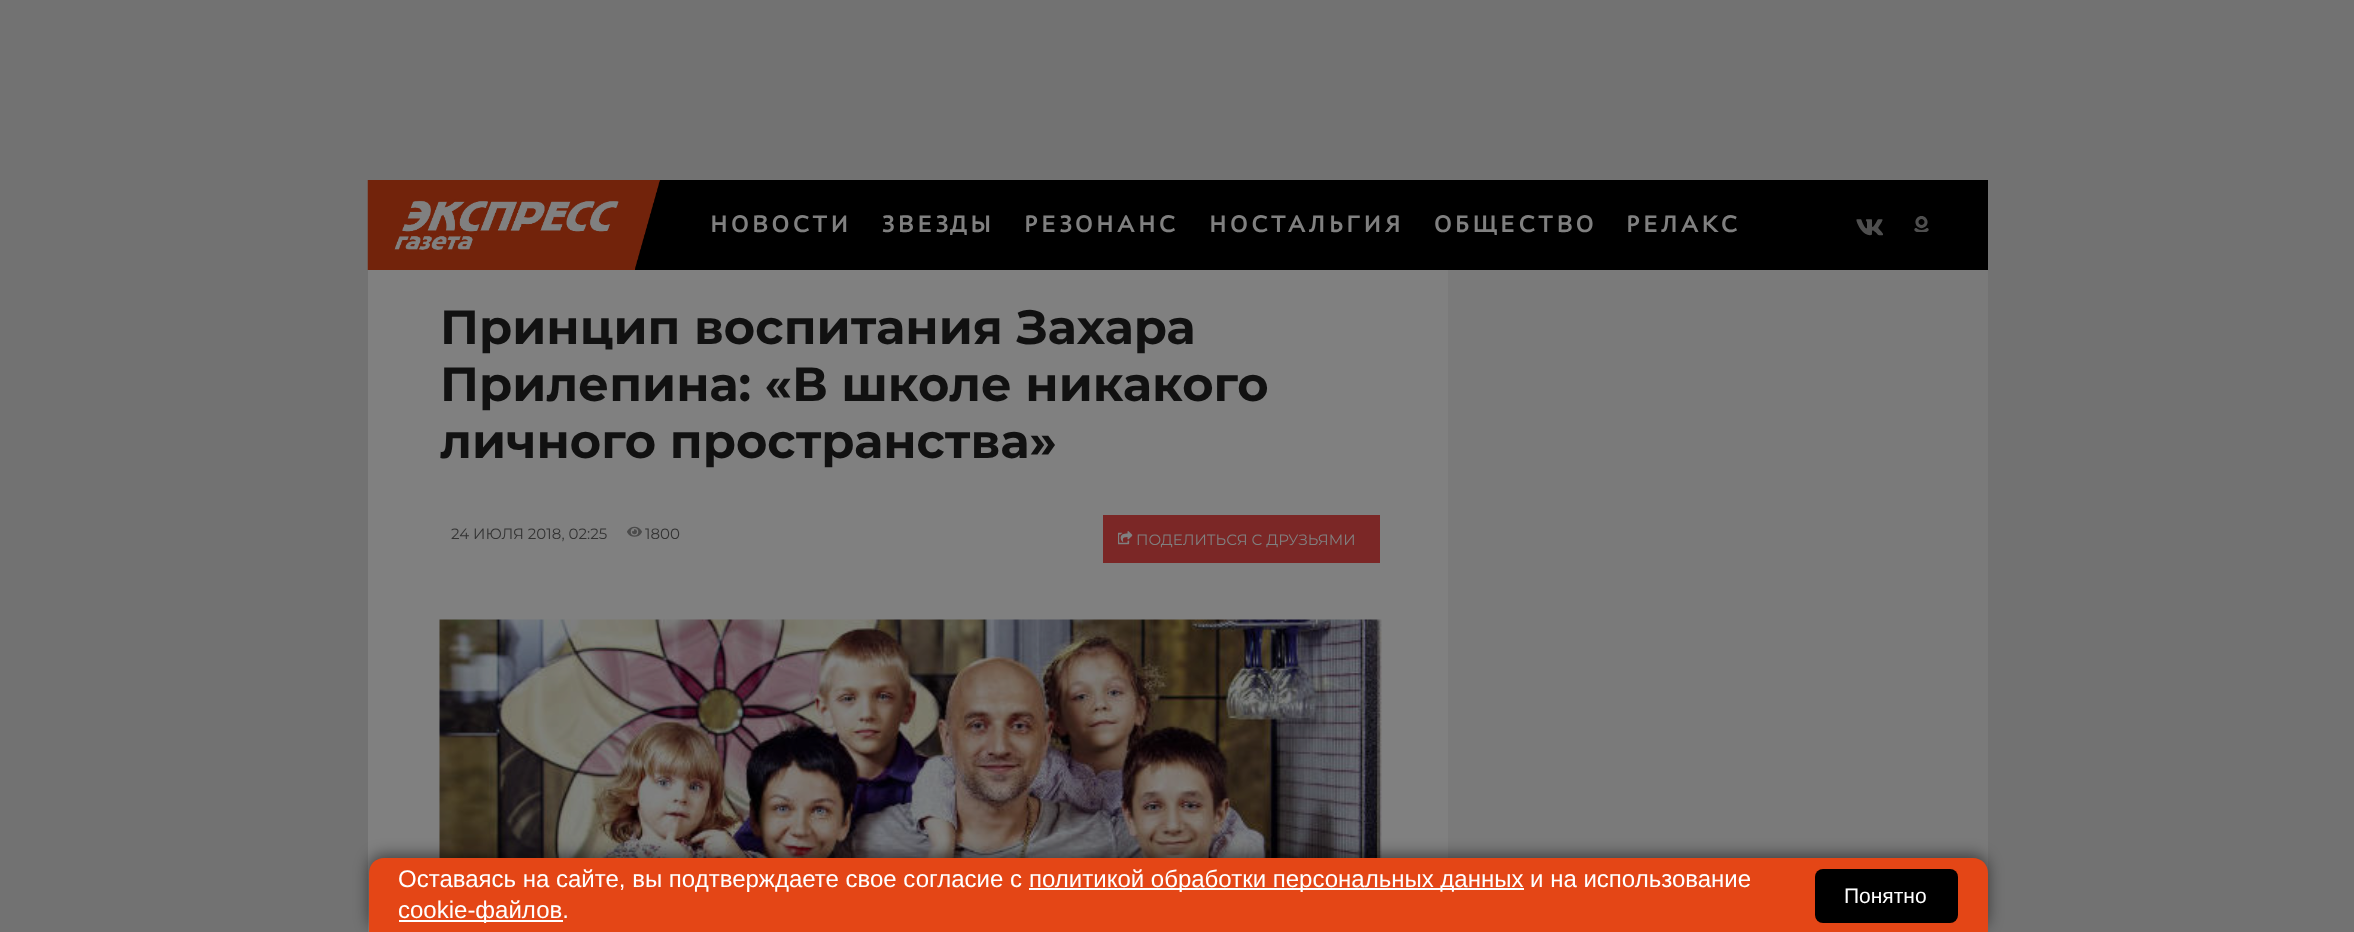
<svg xmlns="http://www.w3.org/2000/svg" xmlns:xlink="http://www.w3.org/1999/xlink" width="2354" height="932" viewBox="0 0 2354 932">
<style>
.cls-1{font:bold 24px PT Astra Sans;letter-spacing:3.6px;fill:#808080}
.cls-2{font:bold 48px Montserrat;fill:#111111}
.cls-3{font:15px Montserrat;fill:#333333}
.cls-4{font:15px Montserrat;fill:#808080}
.cls-5{font:24px Liberation Sans;fill:#ffffff}
.cls-6{font:21px Liberation Sans;fill:#ffffff}
</style>
<rect width="100%" height="100%" fill="#727272"/>
<rect fill="#000000" x="661" y="180" width="1327" height="90"/>
<image xlink:href="image0.png" x="367" y="180" width="294" height="90"/>
<image xlink:href="image1.png" x="1856" y="219" width="27" height="17"/>
<image xlink:href="image2.png" x="1914" y="216" width="15" height="16"/>
<rect fill="#7a7a7a" x="1448" y="270" width="540" height="603"/>
<rect fill="#808080" x="368" y="270" width="1080" height="662"/>
<image xlink:href="image3.png" x="627" y="526" width="15" height="11"/>
<rect fill="#7b2726" x="1103" y="515" width="277" height="48"/>
<image xlink:href="image4.png" x="1118" y="531" width="15" height="14"/>
<image xlink:href="image5.png" x="439" y="619" width="943" height="239"/>
<rect fill="#000000" fill-opacity="0.5" filter="blur(7.5px)" x="369" y="855" width="1619" height="75" rx="15"/>
<path fill="#e44616" d="M384 858H1973C1981.5 858 1988 864.5 1988 873V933H369V873C369 864.5 375.5 858 384 858Z"/>
<rect fill="#ffffff" x="1029" y="888" width="495" height="2"/>
<rect fill="#ffffff" x="399" y="920" width="164" height="2"/>
<rect fill="#000000" x="1815" y="869" width="143" height="54" rx="8"/>
<text class="cls-1" x="710" y="232">НОВОСТИ</text>
<text class="cls-1" x="882" y="232">ЗВЕЗДЫ</text>
<text class="cls-1" x="1024" y="232">РЕЗОНАНС</text>
<text class="cls-1" x="1209" y="232">НОСТАЛЬГИЯ</text>
<text class="cls-1" x="1434" y="232">ОБЩЕСТВО</text>
<text class="cls-1" x="1626" y="232">РЕЛАКС</text>
<text class="cls-2"><tspan x="440" y="344">Принцип воспитания Захара</tspan><tspan x="440" y="401">Прилепина: «В школе никакого</tspan><tspan x="440" y="458">личного пространства»</tspan></text>
<text class="cls-3" x="451" y="539">24 ИЮЛЯ 2018, 02:25</text>
<text class="cls-3" x="645" y="539">1800</text>
<text class="cls-4" x="1136" y="545">ПОДЕЛИТЬСЯ С ДРУЗЬЯМИ</text>
<text class="cls-5" x="398" y="887">Оставаясь на сайте, вы подтверждаете свое согласие с</text>
<text class="cls-5" x="1029" y="887">политикой обработки персональных данных и на использование</text>
<text class="cls-5" x="398" y="918">cookie-файлов.</text>
<text class="cls-6" x="1844" y="903">Понятно</text>
</svg>
